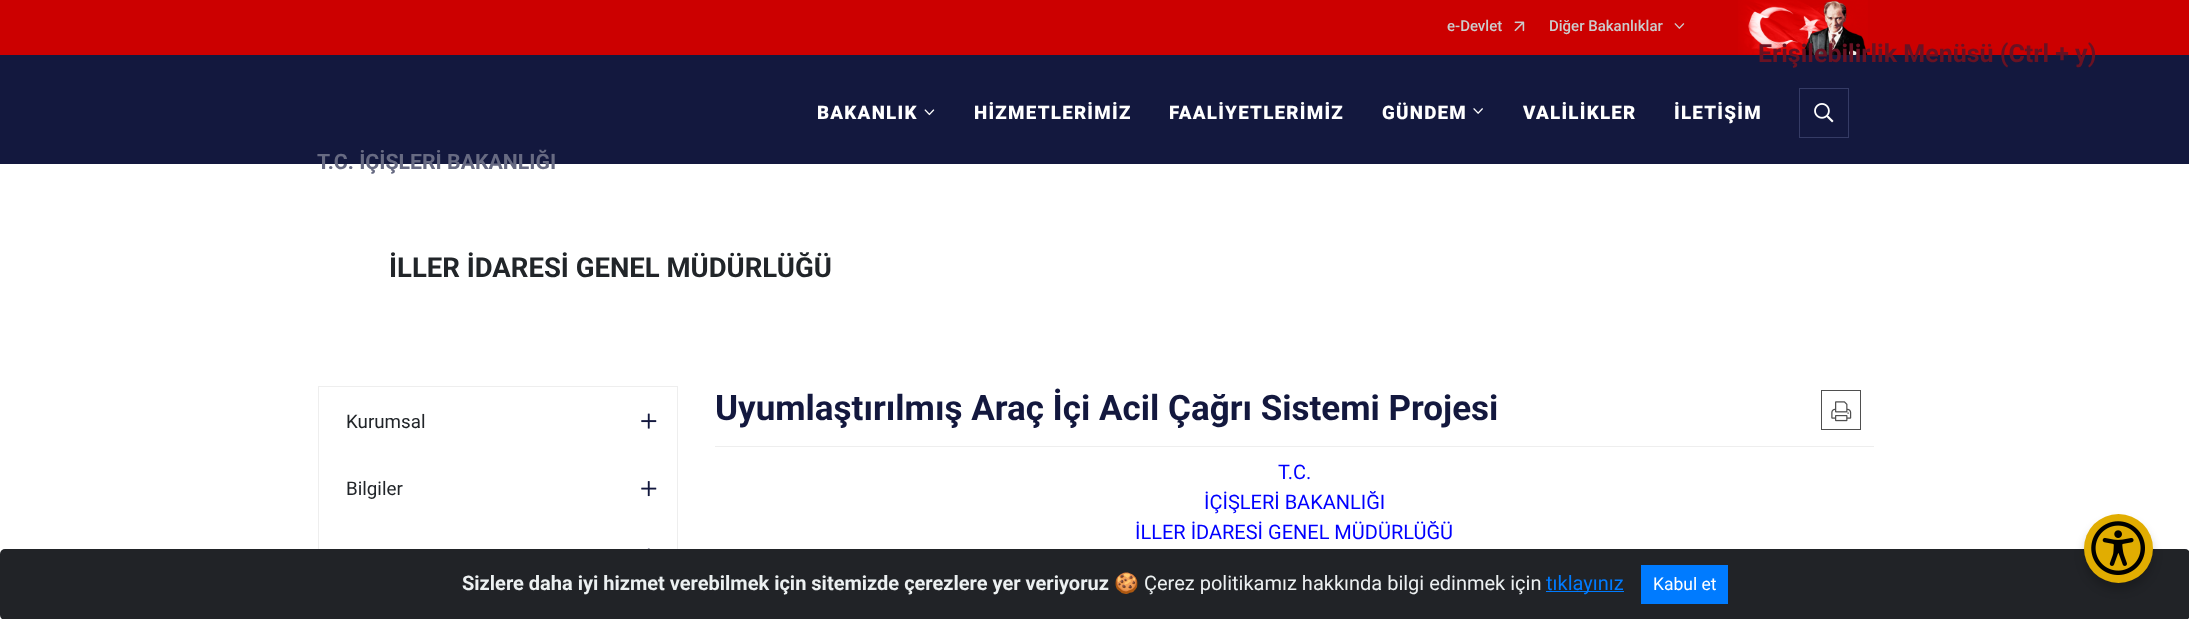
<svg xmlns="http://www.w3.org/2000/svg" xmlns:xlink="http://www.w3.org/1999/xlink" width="2189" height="619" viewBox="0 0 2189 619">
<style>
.cls-1{font:500 15px Roboto;fill:#cccccc}
.cls-2{font:900 18.75px Roboto;letter-spacing:1.25px;fill:#ffffff}
.cls-3{font:bold 21.25px Roboto;fill:#676a82}
.cls-4{font:bold 27.5px Roboto;fill:#212529}
.cls-5{font:18.75px Roboto;fill:#212529}
.cls-6{font:bold 35px Roboto;fill:#13183e}
.cls-7{font:20px Roboto;fill:#0000ff}
.cls-8{font:bold 25px Roboto;fill:#691223}
.cls-9{font:bold 20px Roboto;fill:#ecf0f1}
.cls-10{font:20px Noto Color Emoji;fill:#ecf0f1}
.cls-11{font:20px Roboto;fill:#ecf0f1}
.cls-12{font:20px Roboto;fill:#007bff}
.cls-13{font:17.5px Roboto;fill:#ffffff}
</style>
<rect width="100%" height="100%" fill="#ffffff"/>
<rect fill="#cc0000" x="0" y="0" width="2189" height="55"/>
<image xlink:href="image0.png" x="1514" y="21" width="11" height="11"/>
<image xlink:href="image1.png" x="1674" y="23" width="11" height="6"/>
<image xlink:href="image2.png" x="1738" y="0" width="130" height="55"/>
<rect fill="#13183e" x="0" y="55" width="2189" height="109"/>
<image xlink:href="image3.png" x="924" y="109" width="11" height="7"/>
<image xlink:href="image4.png" x="1473" y="108" width="10" height="6"/>
<rect fill="none" stroke="#353b65" x="1799.5" y="88.5" width="49" height="49"/>
<image xlink:href="image5.png" x="1814" y="103" width="20" height="20"/>
<rect fill="none" stroke="#eeeeee" x="318.5" y="386.5" width="359" height="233"/>
<image xlink:href="image6.png" x="641" y="413" width="16" height="16"/>
<image xlink:href="image7.png" x="641" y="481" width="16" height="16"/>
<image xlink:href="image8.png" x="647" y="548" width="3" height="1"/>
<rect fill="#eeeeee" x="715" y="446" width="1159" height="1"/>
<rect fill="none" stroke="#4f4f4f" x="1821.5" y="390.5" width="39" height="39"/>
<image xlink:href="image9.png" x="1831" y="401" width="21" height="21"/>
<rect fill="#212327" x="0" y="549" width="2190" height="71" rx="5"/>
<rect fill="#000000" fill-opacity="0.2" filter="blur(5px)" x="2084" y="521" width="69" height="69" rx="34.5"/>
<circle fill="#e1ad01" cx="2118.5" cy="548.5" r="34.5"/>
<image xlink:href="image10.png" x="2091" y="521" width="54" height="54"/>
<rect fill="#007bff" x="1546" y="591" width="78" height="1"/>
<rect fill="#007bff" x="1641" y="565" width="87" height="39"/>
<text class="cls-1" x="1447" y="31">e-Devlet</text>
<text class="cls-1" x="1549" y="31">Diğer Bakanlıklar</text>
<text class="cls-2" x="817" y="119">BAKANLIK</text>
<text class="cls-2" x="974" y="119">HİZMETLERİMİZ</text>
<text class="cls-2" x="1169" y="119">FAALİYETLERİMİZ</text>
<text class="cls-2" x="1382" y="119">GÜNDEM</text>
<text class="cls-2" x="1523" y="119">VALİLİKLER</text>
<text class="cls-2" x="1674" y="119">İLETİŞİM</text>
<text class="cls-3" x="317" y="169">T.C. İÇİŞLERİ BAKANLIĞI</text>
<text class="cls-4" x="389" y="277">İLLER İDARESİ GENEL MÜDÜRLÜĞÜ</text>
<text class="cls-5" x="346" y="428">Kurumsal</text>
<text class="cls-5" x="346" y="495">Bilgiler</text>
<text class="cls-6" x="715" y="420">Uyumlaştırılmış Araç İçi Acil Çağrı Sistemi Projesi</text>
<text class="cls-7" x="1278" y="479">T.C.</text>
<text class="cls-7" x="1204" y="509">İÇİŞLERİ BAKANLIĞI</text>
<text class="cls-7" x="1135" y="539">İLLER İDARESİ GENEL MÜDÜRLÜĞÜ</text>
<text class="cls-8" x="1758" y="62">Erişilebilirlik Menüsü (Ctrl + y)</text>
<text class="cls-9" x="462" y="590">Sizlere daha iyi hizmet verebilmek için sitemizde çerezlere yer veriyoruz</text>
<text class="cls-10" x="1114" y="590">🍪</text>
<text class="cls-11" x="1144" y="590">Çerez politikamız hakkında bilgi edinmek için</text>
<text class="cls-12" x="1546" y="590">tıklayınız</text>
<text class="cls-13" x="1653" y="590">Kabul et</text>
</svg>
